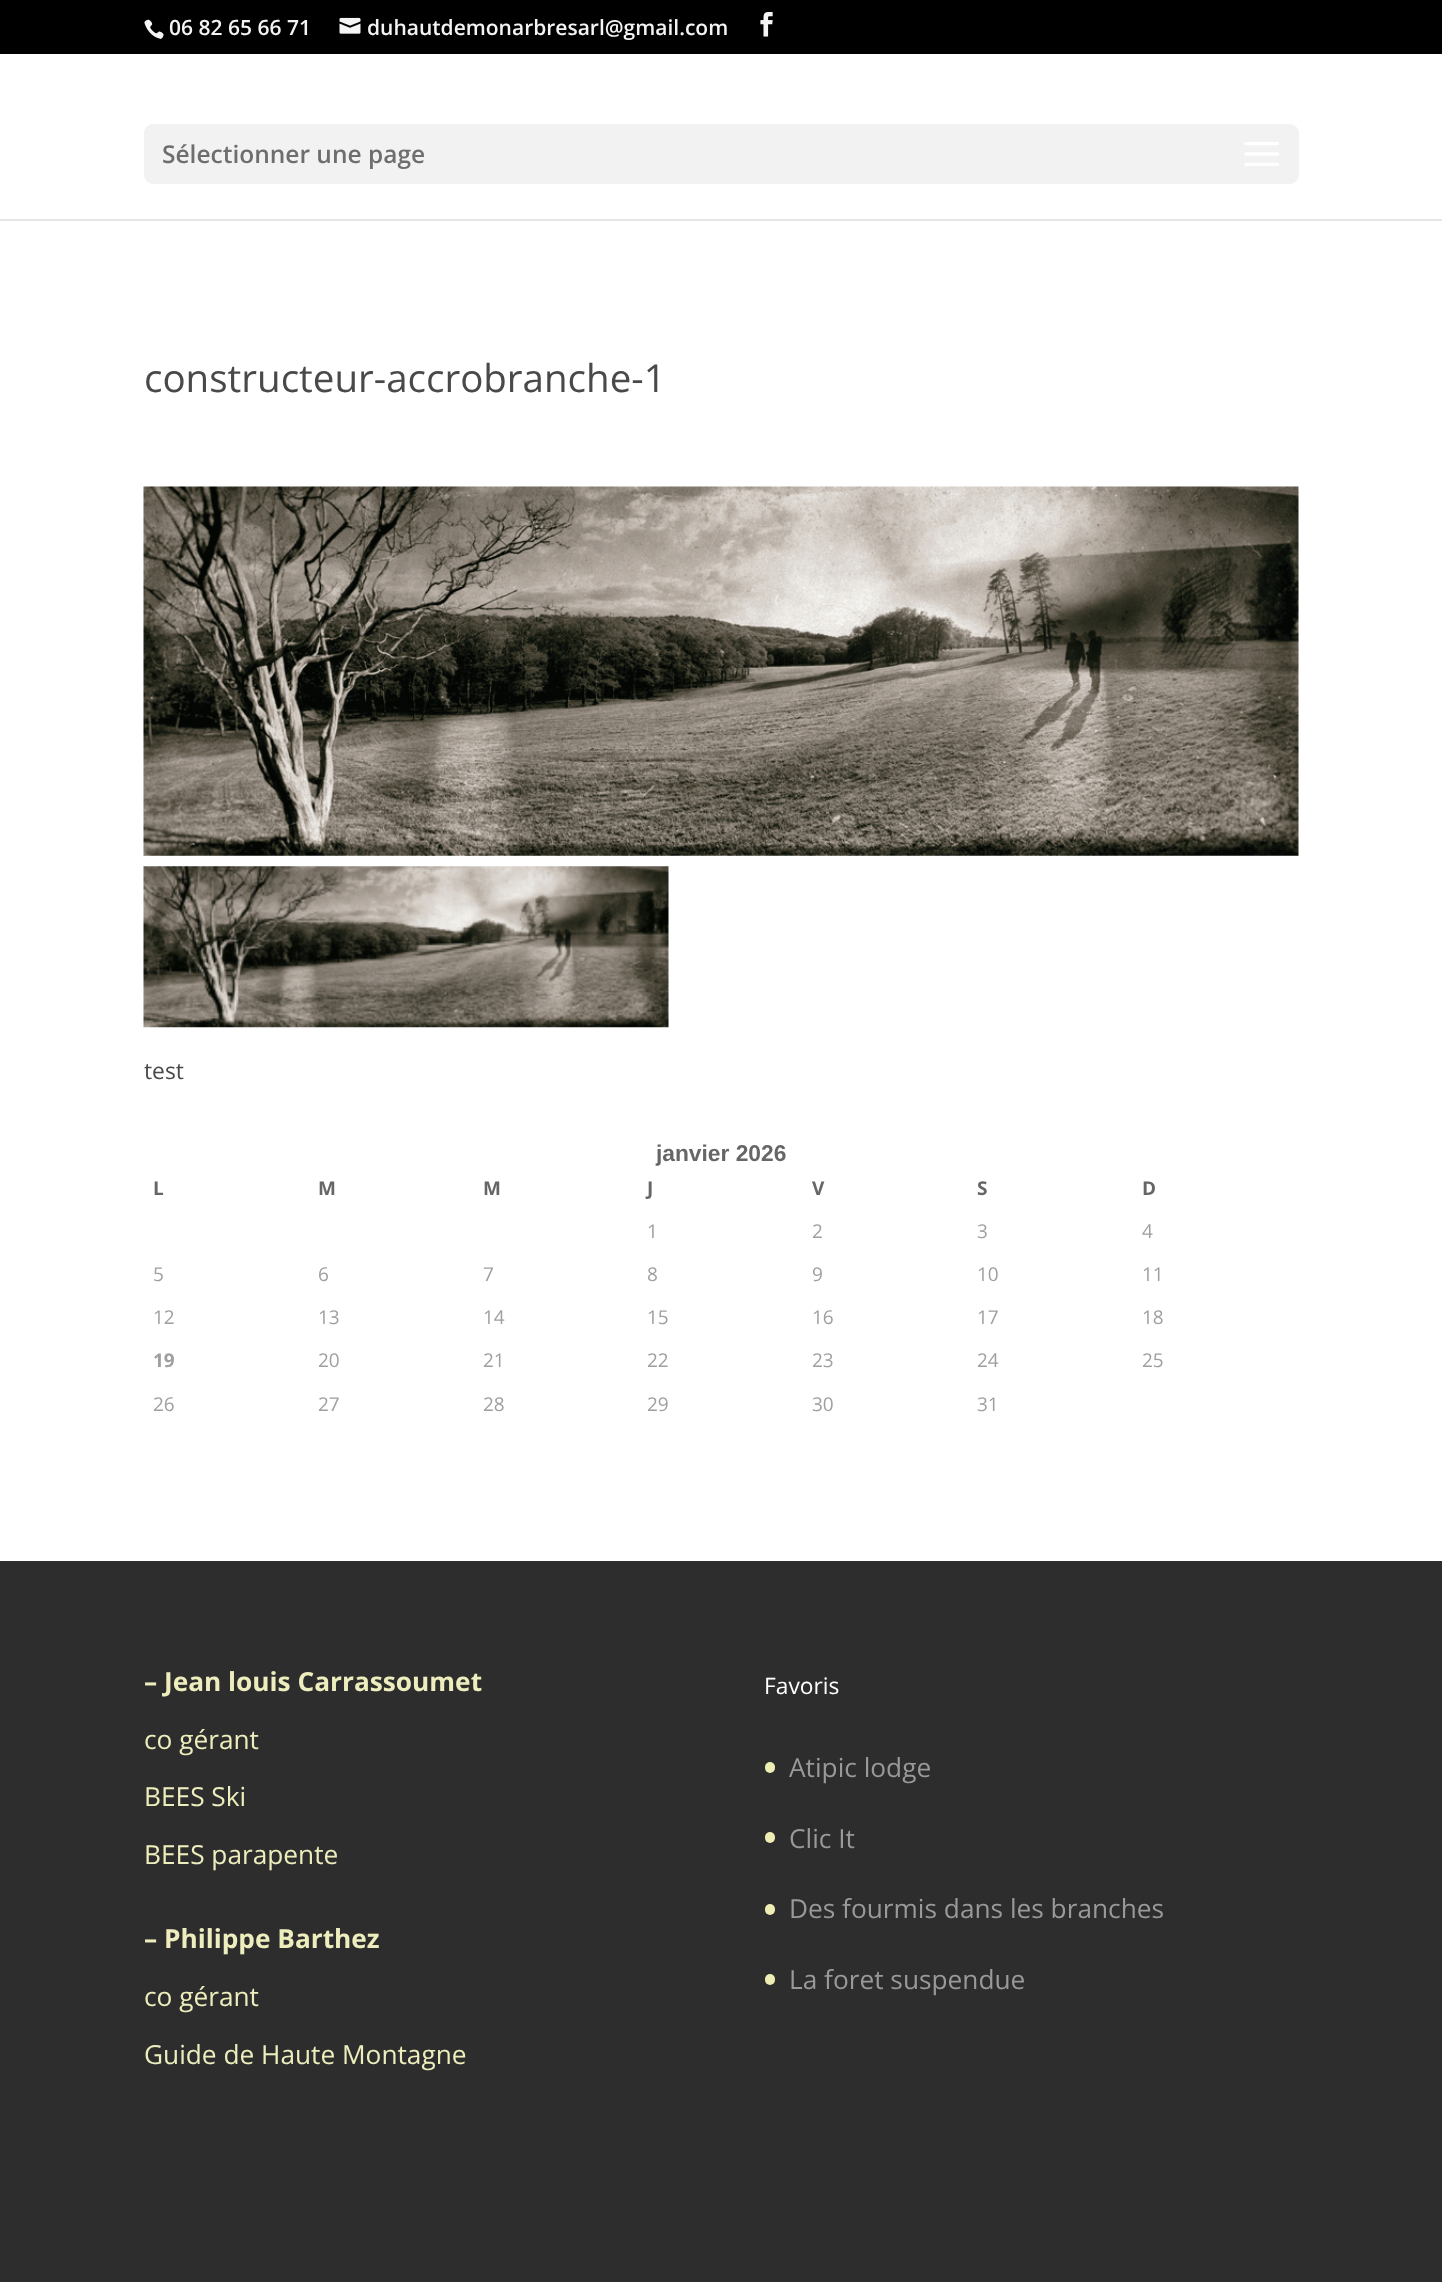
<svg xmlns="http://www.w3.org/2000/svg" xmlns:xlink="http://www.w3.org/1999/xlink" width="1442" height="2282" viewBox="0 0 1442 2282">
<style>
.cls-1{font:600 21px Open Sans;fill:#f4f4f4}
.cls-2{font:600 24.5px Open Sans;fill:#6e6e6e}
.cls-3{font:38.5px Open Sans;fill:#494949}
.cls-4{font:22.75px Open Sans;fill:#494949}
.cls-5{font:bold 22.75px Liberation Sans;fill:#666666}
.cls-6{font:bold 19px Open Sans;fill:#666666}
.cls-7{font:19px Open Sans;fill:#9f9f9f}
.cls-8{font:bold 19px Open Sans;fill:#9f9f9f}
.cls-9{font:bold 26.25px Open Sans;fill:#ededbd}
.cls-10{font:26.25px Open Sans;fill:#ededbd}
.cls-11{font:22.75px Open Sans;fill:#ffffff}
.cls-12{font:26.25px Open Sans;fill:#999999}
</style>
<rect width="100%" height="100%" fill="#ffffff"/>
<rect fill="#000000" x="0" y="0" width="1442" height="54"/>
<image xlink:href="image0.png" x="144" y="19" width="20" height="20"/>
<image xlink:href="image1.png" x="339" y="17" width="22" height="17"/>
<image xlink:href="image2.png" x="760" y="12" width="13" height="25"/>
<rect fill="#e6e6e6" x="0" y="219" width="1442" height="2"/>
<rect fill="#f2f2f2" x="144" y="124" width="1155" height="60" rx="9"/>
<image xlink:href="image3.png" x="1244" y="142" width="35" height="24"/>
<image xlink:href="image4.png" x="143" y="486" width="1156" height="370"/>
<image xlink:href="image5.png" x="143" y="866" width="526" height="162"/>
<rect fill="#2d2d2d" x="0" y="1561" width="1442" height="721"/>
<rect fill="#ededb4" x="765" y="1762" width="10" height="11" rx="5"/>
<rect fill="#ededb4" x="765" y="1832" width="10" height="11" rx="5"/>
<rect fill="#ededb4" x="765" y="1904" width="10" height="11" rx="5"/>
<rect fill="#ededb4" x="765" y="1974" width="10" height="11" rx="5"/>
<text class="cls-1" x="169" y="35">06 82 65 66 71</text>
<text class="cls-1" x="367" y="35">duhautdemonarbresarl@gmail.com</text>
<text class="cls-2" x="162" y="163">Sélectionner une page</text>
<text class="cls-3" x="144" y="392">constructeur-accrobranche-1</text>
<text class="cls-4" x="144" y="1079">test</text>
<text class="cls-5" x="656" y="1161">janvier 2026</text>
<text class="cls-6" x="153" y="1195">L</text>
<text class="cls-6" x="318" y="1195">M</text>
<text class="cls-6" x="483" y="1195">M</text>
<text class="cls-6" x="647" y="1195">J</text>
<text class="cls-6" x="812" y="1195">V</text>
<text class="cls-6" x="977" y="1195">S</text>
<text class="cls-6" x="1142" y="1195">D</text>
<text class="cls-7" x="647" y="1238">1</text>
<text class="cls-7" x="812" y="1238">2</text>
<text class="cls-7" x="977" y="1238">3</text>
<text class="cls-7" x="1142" y="1238">4</text>
<text class="cls-7" x="153" y="1281">5</text>
<text class="cls-7" x="318" y="1281">6</text>
<text class="cls-7" x="483" y="1281">7</text>
<text class="cls-7" x="647" y="1281">8</text>
<text class="cls-7" x="812" y="1281">9</text>
<text class="cls-7" x="977" y="1281">10</text>
<text class="cls-7" x="1142" y="1281">11</text>
<text class="cls-7" x="153" y="1324">12</text>
<text class="cls-7" x="318" y="1324">13</text>
<text class="cls-7" x="483" y="1324">14</text>
<text class="cls-7" x="647" y="1324">15</text>
<text class="cls-7" x="812" y="1324">16</text>
<text class="cls-7" x="977" y="1324">17</text>
<text class="cls-7" x="1142" y="1324">18</text>
<text class="cls-8" x="153" y="1367">19</text>
<text class="cls-7" x="318" y="1367">20</text>
<text class="cls-7" x="483" y="1367">21</text>
<text class="cls-7" x="647" y="1367">22</text>
<text class="cls-7" x="812" y="1367">23</text>
<text class="cls-7" x="977" y="1367">24</text>
<text class="cls-7" x="1142" y="1367">25</text>
<text class="cls-7" x="153" y="1411">26</text>
<text class="cls-7" x="318" y="1411">27</text>
<text class="cls-7" x="483" y="1411">28</text>
<text class="cls-7" x="647" y="1411">29</text>
<text class="cls-7" x="812" y="1411">30</text>
<text class="cls-7" x="977" y="1411">31</text>
<text class="cls-9" x="144" y="1691">– Jean louis Carrassoumet</text>
<text class="cls-10" x="144" y="1749">co gérant</text>
<text class="cls-10" x="144" y="1806">BEES Ski</text>
<text class="cls-10" x="144" y="1864">BEES parapente</text>
<text class="cls-9" x="144" y="1948">– Philippe Barthez</text>
<text class="cls-10" x="144" y="2006">co gérant</text>
<text class="cls-10" x="144" y="2064">Guide de Haute Montagne</text>
<text class="cls-11" x="764" y="1694">Favoris</text>
<text class="cls-12" x="789" y="1777">Atipic lodge</text>
<text class="cls-12" x="789" y="1848">Clic It</text>
<text class="cls-12" x="789" y="1918">Des fourmis dans les branches</text>
<text class="cls-12" x="789" y="1989">La foret suspendue</text>
</svg>
